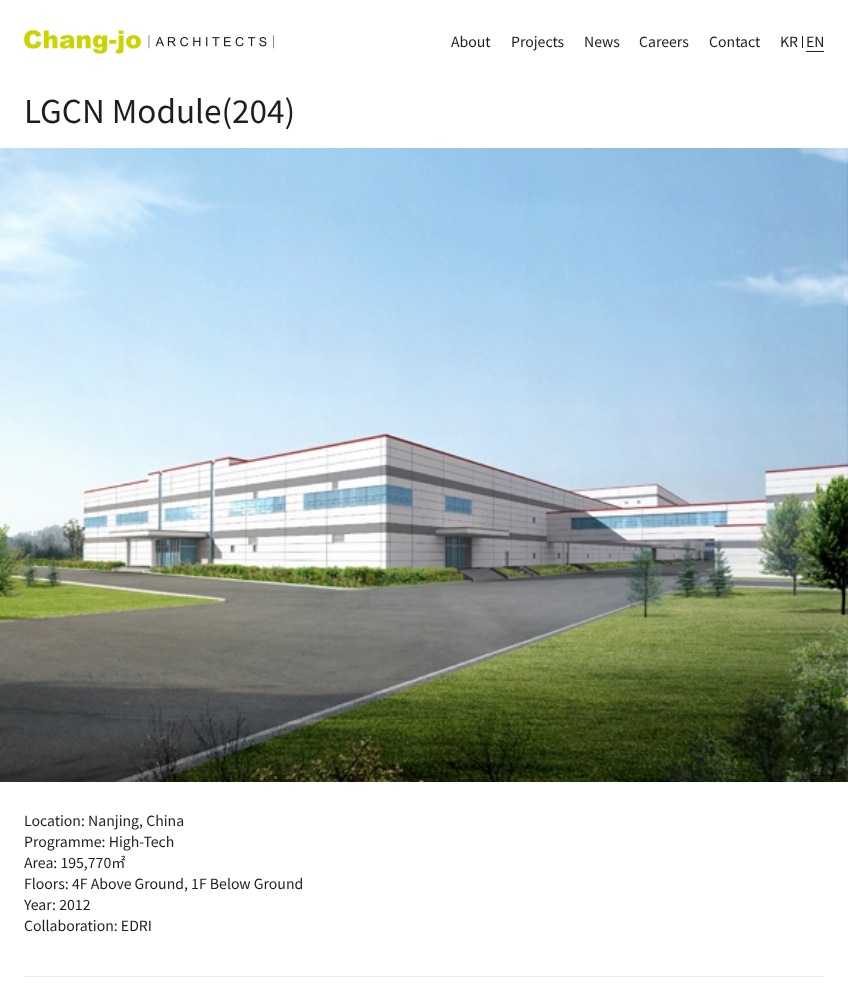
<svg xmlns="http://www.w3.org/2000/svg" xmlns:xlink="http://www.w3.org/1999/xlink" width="848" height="997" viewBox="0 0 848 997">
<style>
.cls-1{font:14.1px Noto Sans KR;fill:#1e1e1e}
.cls-2{font:31.5px Noto Sans KR;fill:#1e1e1e}
</style>
<rect width="100%" height="100%" fill="#ffffff"/>
<image xlink:href="image0.png" x="24" y="30" width="250" height="24"/>
<rect fill="#1e1e1e" x="806" y="51" width="18" height="1"/>
<rect fill="#1e1e1e" x="802" y="36" width="1" height="12"/>
<image xlink:href="image1.png" x="0" y="148" width="848" height="634"/>
<rect fill="#ebebeb" x="24" y="976" width="800" height="1"/>
<text class="cls-1" x="451" y="47">About</text>
<text class="cls-1" x="511" y="47">Projects</text>
<text class="cls-1" x="584" y="47">News</text>
<text class="cls-1" x="639" y="47">Careers</text>
<text class="cls-1" x="709" y="47">Contact</text>
<text class="cls-1" x="780" y="47">KR</text>
<text class="cls-1" x="806" y="47">EN</text>
<text class="cls-2" x="24" y="123">LGCN Module(204)</text>
<text class="cls-1"><tspan x="24" y="826">Location: Nanjing, China</tspan><tspan x="24" y="847">Programme: High-Tech</tspan><tspan x="24" y="868">Area: 195,770㎡</tspan><tspan x="24" y="889">Floors: 4F Above Ground, 1F Below Ground</tspan><tspan x="24" y="910">Year: 2012</tspan><tspan x="24" y="931">Collaboration: EDRI</tspan></text>
</svg>
